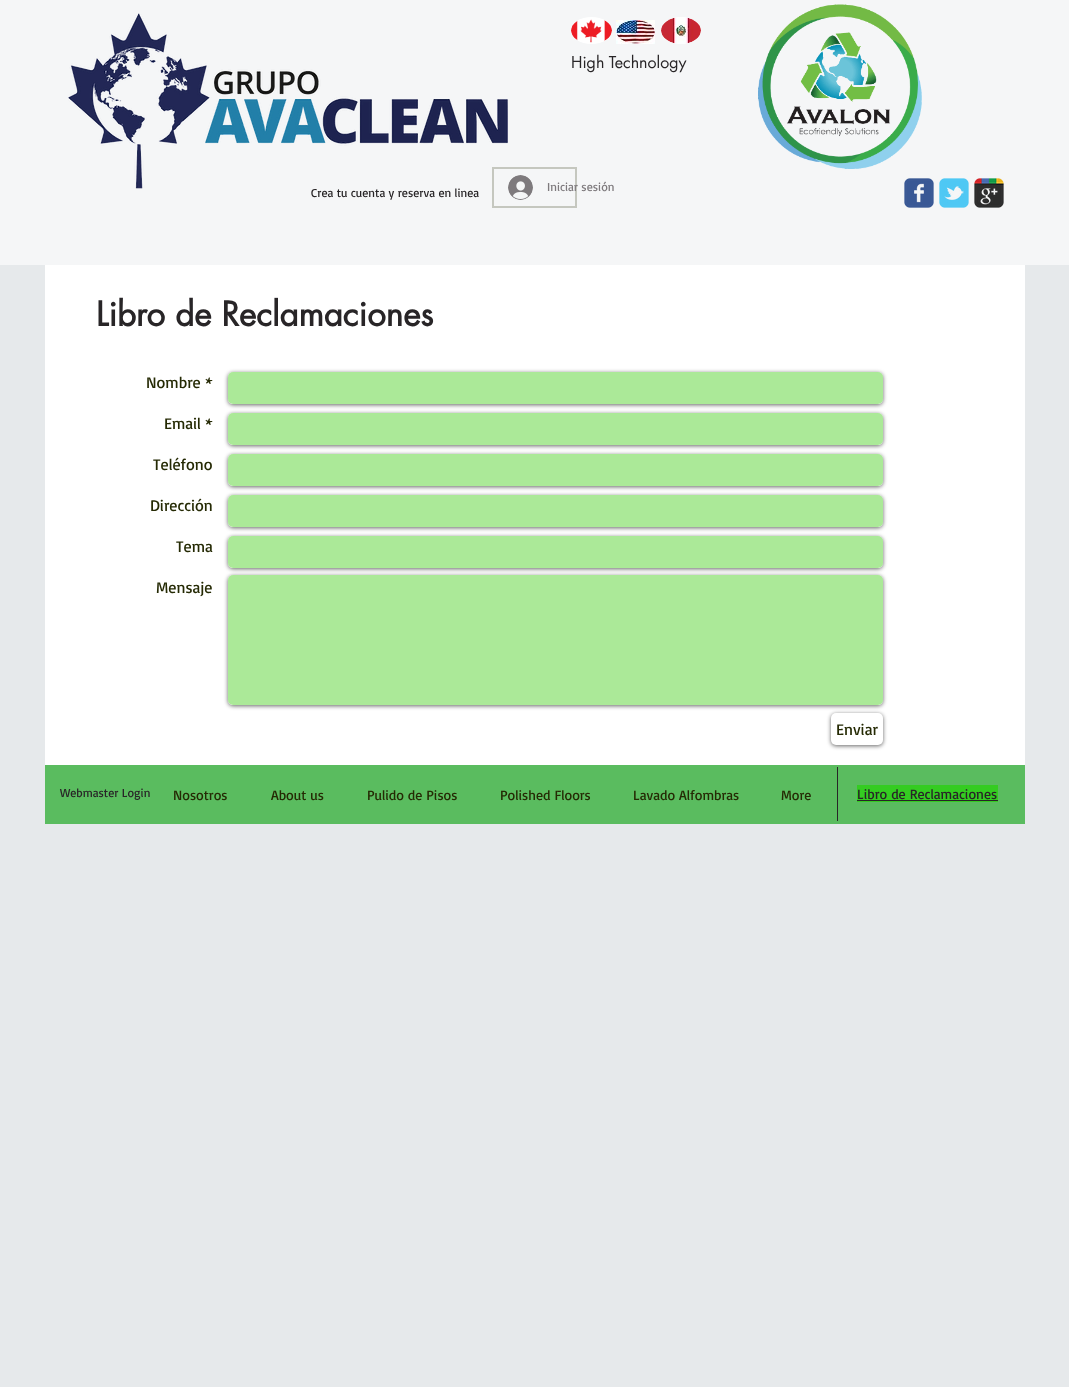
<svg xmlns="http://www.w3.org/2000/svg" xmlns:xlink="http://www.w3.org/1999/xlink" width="1069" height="1387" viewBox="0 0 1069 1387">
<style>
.cls-1{font:16px futura;fill:#282527}
.cls-2{font:12px Basic;fill:#7e7a7d}
.cls-3{font:12px Basic;fill:#282527}
.cls-4{font:bold 33px futura;fill:#282527}
.cls-5{font:16px Basic;fill:#252a04}
.cls-6{font:14px Basic;fill:#252a04}
.cls-7{font:14px Basic;fill:#282527}
</style>
<defs>
<clipPath id="clip1"><path d="M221 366H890V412H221ZM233 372H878C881 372 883 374 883 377V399C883 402 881 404 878 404H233C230 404 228 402 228 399V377C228 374 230 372 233 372Z" clip-rule="evenodd"/></clipPath>
<clipPath id="clip2"><path d="M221 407H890V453H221ZM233 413H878C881 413 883 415 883 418V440C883 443 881 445 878 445H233C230 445 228 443 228 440V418C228 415 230 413 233 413Z" clip-rule="evenodd"/></clipPath>
<clipPath id="clip3"><path d="M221 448H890V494H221ZM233 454H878C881 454 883 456 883 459V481C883 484 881 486 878 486H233C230 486 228 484 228 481V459C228 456 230 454 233 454Z" clip-rule="evenodd"/></clipPath>
<clipPath id="clip4"><path d="M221 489H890V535H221ZM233 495H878C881 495 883 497 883 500V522C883 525 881 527 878 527H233C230 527 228 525 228 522V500C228 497 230 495 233 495Z" clip-rule="evenodd"/></clipPath>
<clipPath id="clip5"><path d="M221 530H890V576H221ZM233 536H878C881 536 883 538 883 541V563C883 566 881 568 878 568H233C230 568 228 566 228 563V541C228 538 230 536 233 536Z" clip-rule="evenodd"/></clipPath>
<clipPath id="clip6"><path d="M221 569H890V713H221ZM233 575H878C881 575 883 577 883 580V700C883 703 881 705 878 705H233C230 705 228 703 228 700V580C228 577 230 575 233 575Z" clip-rule="evenodd"/></clipPath>
</defs>
<rect width="100%" height="100%" fill="#e6e9eb"/>
<rect fill="#f5f6f7" x="0" y="0" width="1069" height="265"/>
<image xlink:href="image0.png" x="68" y="13" width="440" height="176"/>
<ellipse fill="#ffffff" cx="591.5" cy="30.5" rx="20.5" ry="13.5"/>
<image xlink:href="image1.png" x="571" y="19" width="41" height="24"/>
<image xlink:href="image2.png" x="616" y="20" width="39" height="24"/>
<ellipse fill="#ffffff" cx="681" cy="30.5" rx="20" ry="13.5"/>
<image xlink:href="image3.png" x="661" y="17" width="40" height="27"/>
<image xlink:href="image4.png" x="758" y="4" width="164" height="165"/>
<rect fill="none" stroke="#c5c7bf" stroke-width="2" x="493" y="168" width="83" height="39"/>
<image xlink:href="image5.png" x="508" y="175" width="25" height="25"/>
<image xlink:href="image6.png" x="904" y="178" width="30" height="30"/>
<image xlink:href="image7.png" x="939" y="178" width="30" height="30"/>
<image xlink:href="image8.png" x="974" y="178" width="30" height="30"/>
<rect fill="#ffffff" x="45" y="265" width="980" height="500"/>
<g clip-path="url(#clip1)">
<rect fill="#000000" fill-opacity="0.6" filter="blur(2px)" x="228" y="373" width="655" height="32" rx="5"/>
</g>
<rect fill="#36ca0a" fill-opacity="0.42" x="228" y="372" width="655" height="32" rx="5"/>
<g clip-path="url(#clip2)">
<rect fill="#000000" fill-opacity="0.6" filter="blur(2px)" x="228" y="414" width="655" height="32" rx="5"/>
</g>
<rect fill="#36ca0a" fill-opacity="0.42" x="228" y="413" width="655" height="32" rx="5"/>
<g clip-path="url(#clip3)">
<rect fill="#000000" fill-opacity="0.6" filter="blur(2px)" x="228" y="455" width="655" height="32" rx="5"/>
</g>
<rect fill="#36ca0a" fill-opacity="0.42" x="228" y="454" width="655" height="32" rx="5"/>
<g clip-path="url(#clip4)">
<rect fill="#000000" fill-opacity="0.6" filter="blur(2px)" x="228" y="496" width="655" height="32" rx="5"/>
</g>
<rect fill="#36ca0a" fill-opacity="0.42" x="228" y="495" width="655" height="32" rx="5"/>
<g clip-path="url(#clip5)">
<rect fill="#000000" fill-opacity="0.6" filter="blur(2px)" x="228" y="537" width="655" height="32" rx="5"/>
</g>
<rect fill="#36ca0a" fill-opacity="0.42" x="228" y="536" width="655" height="32" rx="5"/>
<g clip-path="url(#clip6)">
<rect fill="#000000" fill-opacity="0.6" filter="blur(2px)" x="228" y="576" width="655" height="130" rx="5"/>
</g>
<rect fill="#36ca0a" fill-opacity="0.42" x="228" y="575" width="655" height="130" rx="5"/>
<rect fill="#000000" fill-opacity="0.6" filter="blur(2px)" x="831" y="714" width="52" height="32" rx="5"/>
<rect fill="#ffffff" x="831" y="713" width="52" height="32" rx="5"/>
<rect fill="#5abc5f" x="45" y="765" width="980" height="59"/>
<rect fill="#282527" x="837" y="767" width="1" height="54"/>
<rect fill="#34cc21" x="857" y="785" width="141" height="17"/>
<rect fill="#282527" x="857" y="800" width="141" height="1"/>
<text class="cls-1" x="571" y="68">High Technology</text>
<text class="cls-2" x="547" y="191">Iniciar sesión</text>
<text class="cls-3" x="311" y="197">Crea tu cuenta y reserva en linea</text>
<text class="cls-4" x="96" y="326">Libro de Reclamaciones</text>
<text class="cls-5" x="146" y="388">Nombre *</text>
<text class="cls-5" x="164" y="429">Email *</text>
<text class="cls-5" x="153" y="470">Teléfono</text>
<text class="cls-5" x="150" y="511">Dirección</text>
<text class="cls-5" x="176" y="552">Tema</text>
<text class="cls-5" x="156" y="593">Mensaje</text>
<text class="cls-5" x="836" y="735">Enviar</text>
<text class="cls-3" x="60" y="797">Webmaster Login</text>
<text class="cls-6" x="173" y="800">Nosotros</text>
<text class="cls-6" x="271" y="800">About us</text>
<text class="cls-6" x="367" y="800">Pulido de Pisos</text>
<text class="cls-6" x="500" y="800">Polished Floors</text>
<text class="cls-6" x="633" y="800">Lavado Alfombras</text>
<text class="cls-6" x="781" y="800">More</text>
<text class="cls-7" x="857" y="799">Libro de Reclamaciones</text>
</svg>
